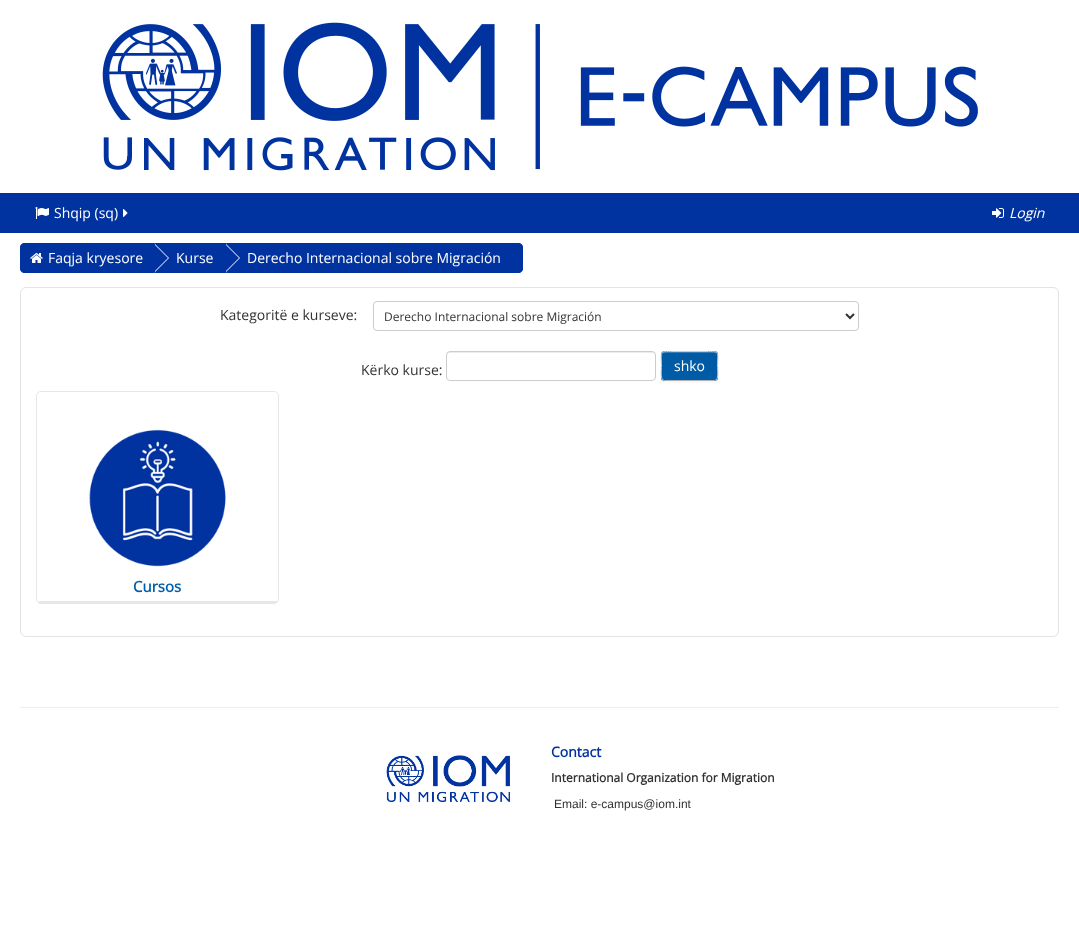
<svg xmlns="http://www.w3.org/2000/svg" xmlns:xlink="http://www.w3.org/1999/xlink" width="1079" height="941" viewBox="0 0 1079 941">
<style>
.cls-1{font:14px Open Sans;fill:#ffffff}
.cls-2{font:italic 14px Open Sans;fill:#ffffff}
.cls-3{font:14px Open Sans;fill:#333333}
.cls-4{font:12px Open Sans;fill:#333333}
.cls-5{font:bold 15px Open Sans;fill:#005daa}
.cls-6{font:bold 14px Open Sans;fill:#0033a0}
.cls-7{font:bold 12px Open Sans;fill:#333333}
.cls-8{font:12px Liberation Sans;fill:#333333}
</style>
<defs>
<clipPath id="clip1"><rect x="661" y="351" width="57" height="30" rx="4"/></clipPath>
<linearGradient id="g1" gradientUnits="userSpaceOnUse" x1="690" y1="380" x2="690" y2="352"><stop offset="0" stop-color="#005daa"/><stop offset="1" stop-color="#005499" stop-opacity="0.25"/></linearGradient>
</defs>
<rect width="100%" height="100%" fill="#ffffff"/>
<image xlink:href="image0.png" x="102" y="22" width="876" height="149"/>
<rect fill="#0033a0" x="0" y="193" width="1079" height="40"/>
<image xlink:href="image1.png" x="35" y="207" width="14" height="12"/>
<image xlink:href="image2.png" x="123" y="209" width="5" height="8"/>
<image xlink:href="image3.png" x="992" y="208" width="12" height="10"/>
<path fill="#0033a0" stroke="#0033a0" d="M24 243.5H154.5V272.5H24C22 272.5 20.5 271 20.5 269V247C20.5 245 22 243.5 24 243.5Z"/>
<rect fill="#0033a0" x="155" y="243" width="71" height="30"/>
<path fill="#ffffff" d="M155 272V244L169 258Z"/>
<path fill="#0033a0" d="M154 272V244L168 258Z"/>
<image xlink:href="image4.png" x="30" y="253" width="13" height="10"/>
<path fill="#0033a0" stroke="#0033a0" d="M226.5 243.5H519C521 243.5 522.5 245 522.5 247V269C522.5 271 521 272.5 519 272.5H226.5Z"/>
<path fill="#ffffff" d="M226 272V244L240 258Z"/>
<path fill="#0033a0" d="M225 272V244L239 258Z"/>
<rect fill="none" stroke="#e3e3e3" x="20.5" y="287.5" width="1038" height="349" rx="5.5"/>
<rect fill="none" stroke="#cccccc" x="373.5" y="301.5" width="485" height="29" rx="3.5"/>
<path fill="none" stroke="#333333" stroke-width="2" d="M846 314L850 318L854 314"/>
<path fill="#ececec" d="M450 353H652C654 353 655 354 655 356C655 354 654 352 652 352H449C447 353 447 354 447 356C447 354 448 353 450 353Z"/>
<rect fill="none" stroke="#cccccc" x="446.5" y="351.5" width="209" height="29" rx="3.5"/>
<rect fill="#000000" fill-opacity="0.05" filter="blur(1px)" x="661" y="352" width="57" height="30" rx="4"/>
<rect fill="#005daa" x="661" y="351" width="57" height="30" rx="4"/>
<g clip-path="url(#clip1)">
<rect fill="url(#g1)" x="661" y="352" width="57" height="28"/>
</g>
<path fill="#337bb7" d="M665 353H714C716 353 717 354 717 356C717 350 710 352 706 352H673C669 352 662 350 662 356C662 354 663 353 665 353Z"/>
<path fill="none" stroke="#b3b3b3" d="M716.5 379.5L714.5 380.5H664.5L662.5 379.5"/>
<path fill="none" stroke="#cccccc" d="M662.5 379.5C660.5 377.5 661.5 369 661.5 366C661.5 351 658.5 351.5 673 351.5H706C720.5 351.5 717.5 351 717.5 366C717.5 369 718.5 377.5 716.5 379.5"/>
<rect fill="none" stroke="#e7e7e7" x="36.5" y="391.5" width="242" height="212" rx="4.5"/>
<rect fill="#e7e7e7" x="39" y="601" width="238" height="2"/>
<image xlink:href="image5.png" x="89" y="429" width="137" height="138"/>
<rect fill="#eeeeee" x="20" y="707" width="1039" height="1"/>
<image xlink:href="image6.png" x="386" y="755" width="124" height="47"/>
<text class="cls-1" x="54" y="218">Shqip (sq)</text>
<text class="cls-2" x="1009" y="218">Login</text>
<text class="cls-1" x="48" y="263">Faqja kryesore</text>
<text class="cls-1" x="176" y="263">Kurse</text>
<text class="cls-1" x="247" y="263">Derecho Internacional sobre Migración</text>
<text class="cls-3" x="220" y="320">Kategoritë e kurseve:</text>
<text class="cls-4" x="384" y="321">Derecho Internacional sobre Migración</text>
<text class="cls-3" x="361" y="375">Kërko kurse:</text>
<text class="cls-1" x="674" y="371">shko</text>
<text class="cls-5" x="133" y="592">Cursos</text>
<text class="cls-6" x="551" y="757">Contact</text>
<text class="cls-7" x="551" y="782">International Organization for Migration</text>
<text class="cls-8" x="554" y="808">Email: e-campus@iom.int</text>
</svg>
